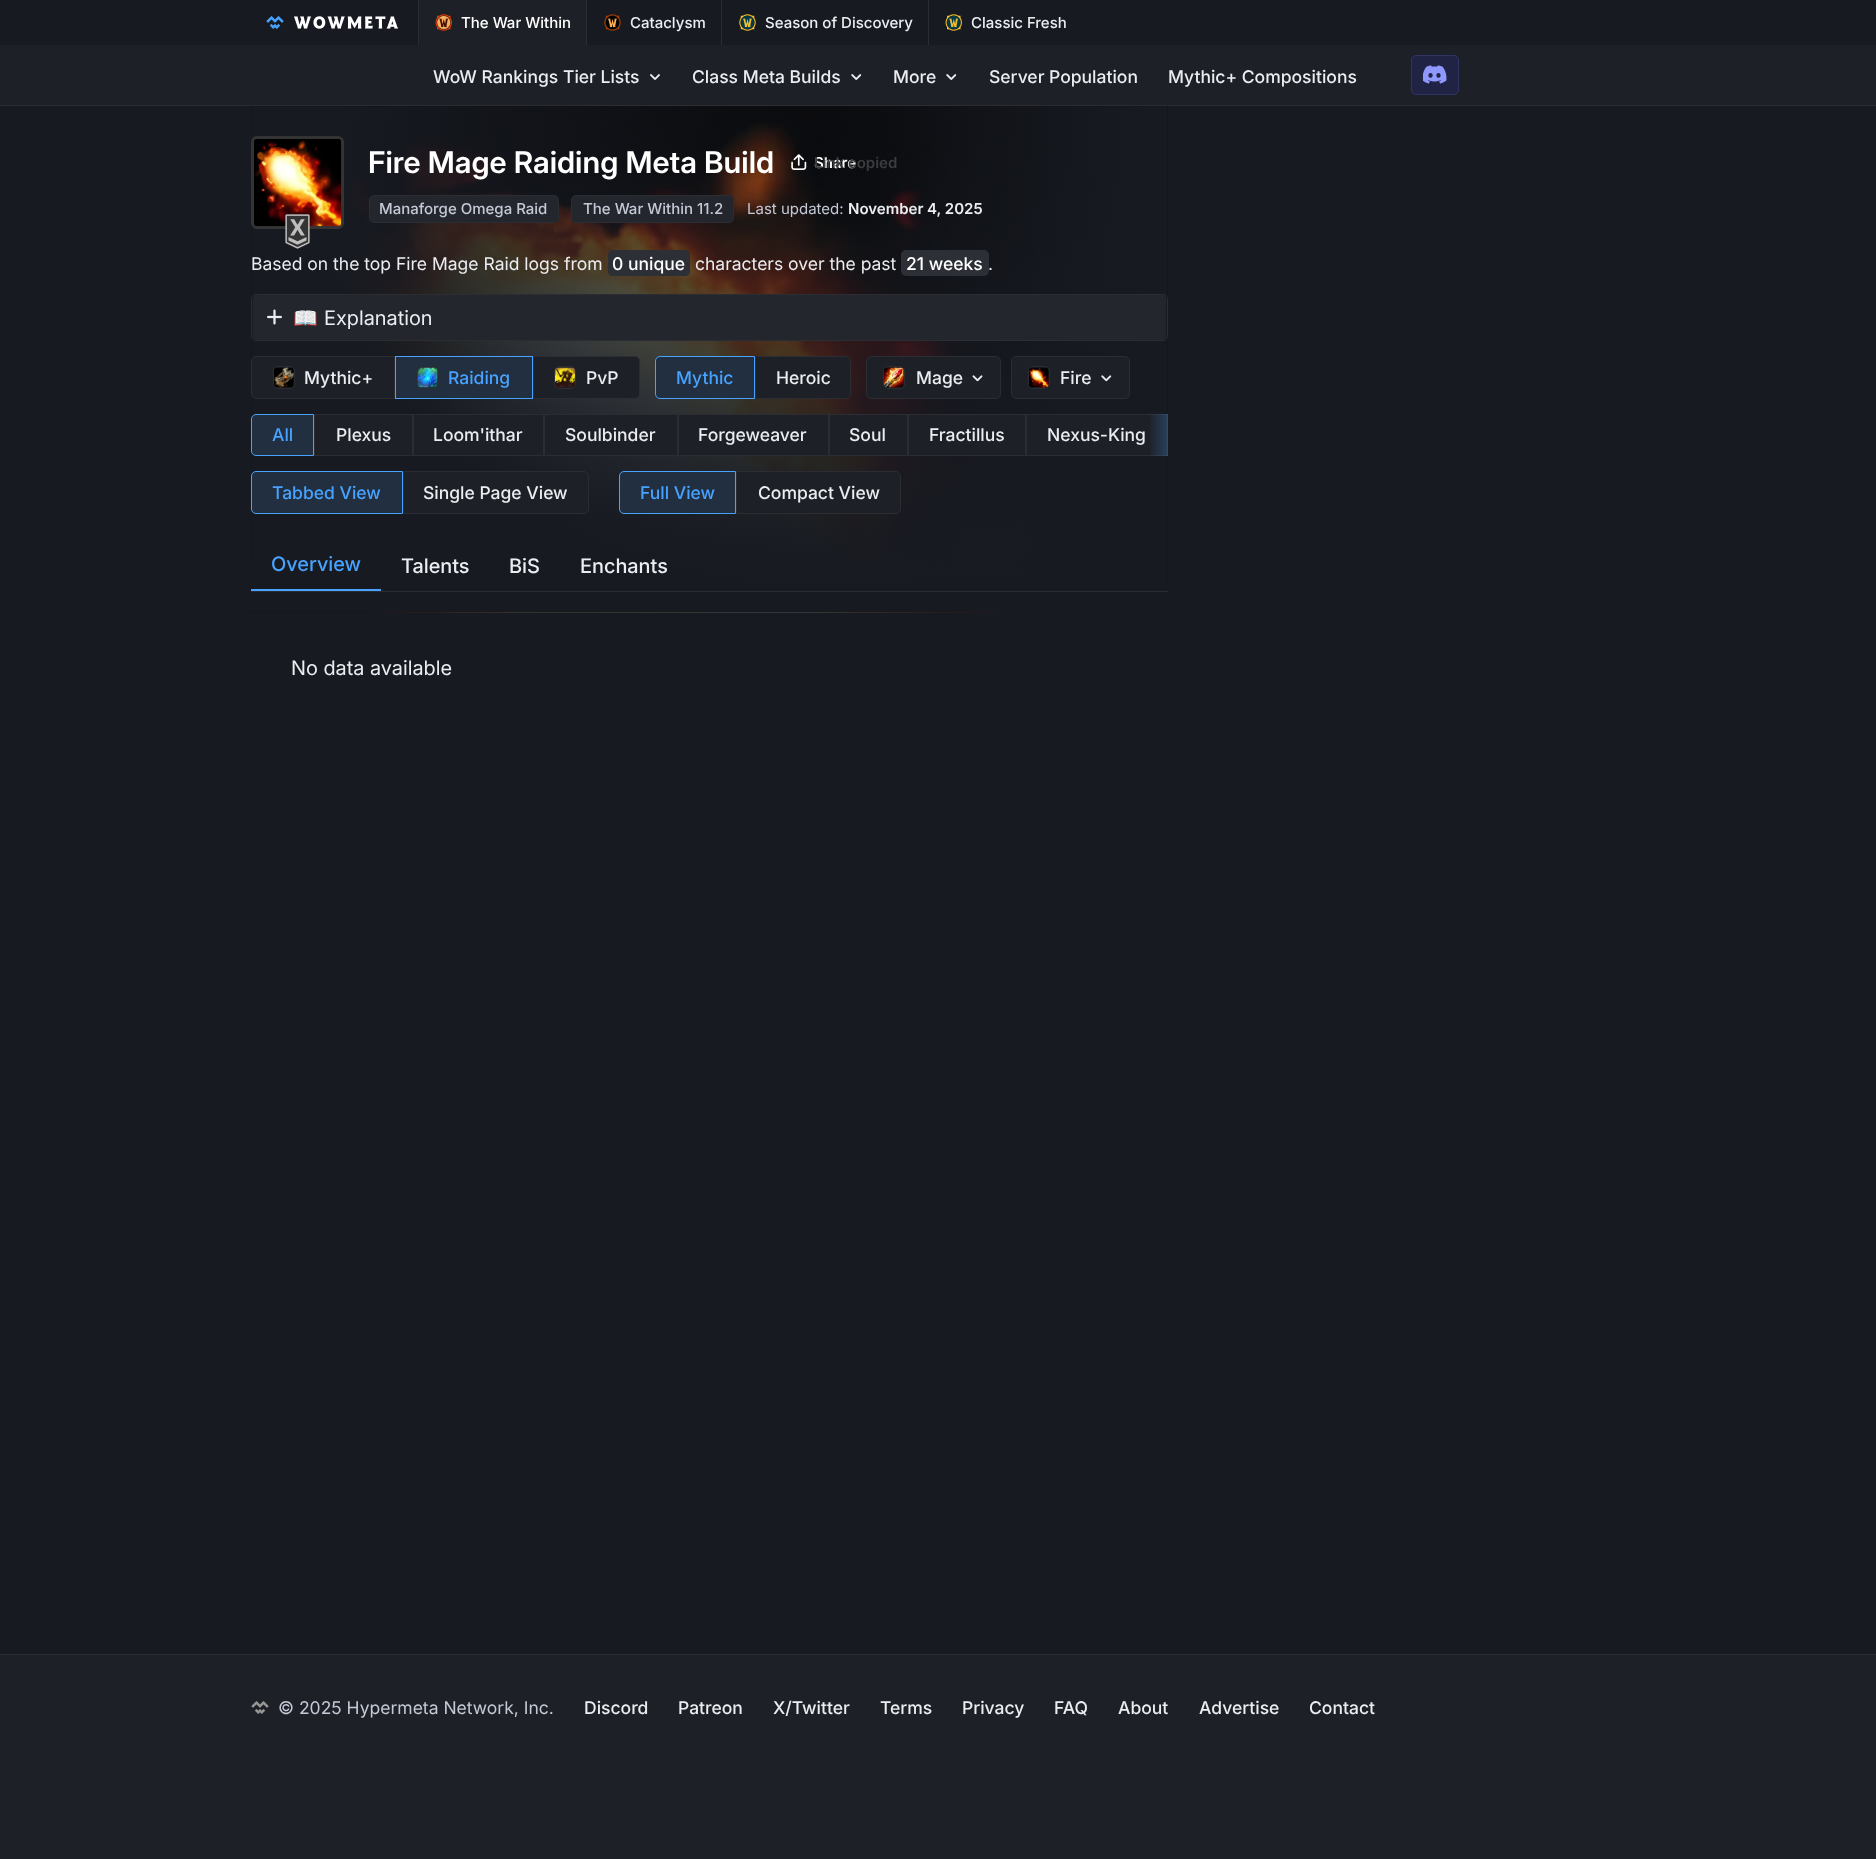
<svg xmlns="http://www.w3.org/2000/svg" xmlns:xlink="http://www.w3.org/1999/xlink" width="1876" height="1859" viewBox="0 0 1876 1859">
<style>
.cls-1{font:500 15px Inter;fill:#ffffff}
.cls-2{font:500 15px Inter;fill:#ebedf1}
.cls-3{font:500 17.5px Inter;fill:#ebedf1}
.cls-4{font:600 30px Inter;fill:#ffffff}
.cls-5{font:600 15px 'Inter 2';fill:#ffffff}
.cls-6{font:600 15px 'Inter 2';fill:#3b3c3e}
.cls-7{font:500 15px Inter;fill:#c4c9d6}
.cls-8{font:15px 'Inter 2';fill:#c4c9d6}
.cls-9{font:600 15px 'Inter 2';fill:#ebedf1}
.cls-10{font:17.5px 'Inter 2';fill:#ebedf1}
.cls-11{font:500 17.5px Inter;fill:#ffffff}
.cls-12{font:20px Noto Color Emoji;fill:#ebedf1}
.cls-13{font:20px Inter;fill:#ebedf1}
.cls-14{font:500 17.5px Inter;fill:#47a3ff}
.cls-15{font:500 20px 'Inter 2';fill:#47a3ff}
.cls-16{font:500 20px 'Inter 2';fill:#ebedf1}
.cls-17{font:17.5px 'Inter 2';fill:#c4c9d6}
</style>
<defs>
<linearGradient id="g1" gradientUnits="userSpaceOnUse" x1="1168" y1="435" x2="1148" y2="435"><stop offset="0" stop-color="#47a3ff" stop-opacity="0.25"/><stop offset="1" stop-color="#47a3ff" stop-opacity="0"/></linearGradient>
</defs>
<rect width="100%" height="100%" fill="#171a21"/>
<rect fill="#1d2026" x="0" y="45" width="1876" height="60"/>
<rect fill="#2b2d33" x="0" y="105" width="1876" height="1"/>
<image xlink:href="image0.png" x="266" y="16" width="18" height="13"/>
<image xlink:href="image1.png" x="294" y="16" width="104" height="13"/>
<rect fill="#1d2026" x="419" y="0" width="167" height="45"/>
<rect fill="#2b2d33" x="418" y="0" width="1" height="45"/>
<image xlink:href="image2.png" x="435" y="14" width="17" height="17"/>
<rect fill="#2b2d33" x="586" y="0" width="1" height="45"/>
<image xlink:href="image3.png" x="604" y="14" width="17" height="17"/>
<rect fill="#2b2d33" x="721" y="0" width="1" height="45"/>
<image xlink:href="image4.png" x="739" y="14" width="17" height="17"/>
<rect fill="#2b2d33" x="928" y="0" width="1" height="45"/>
<image xlink:href="image5.png" x="945" y="14" width="17" height="17"/>
<image xlink:href="image6.png" x="650" y="74" width="10" height="6"/>
<image xlink:href="image7.png" x="851" y="74" width="11" height="6"/>
<image xlink:href="image7.png" x="946" y="74" width="11" height="6"/>
<rect fill="#202344" stroke="#303465" x="1411.5" y="55.5" width="47" height="39" rx="4.5"/>
<image xlink:href="image8.png" x="1423" y="65" width="24" height="19"/>
<image xlink:href="image9.png" x="251" y="106" width="917" height="507"/>
<rect fill="none" stroke="#343434" stroke-width="3" x="252.5" y="137.5" width="90" height="90" rx="4.5"/>
<image xlink:href="image10.png" x="254" y="139" width="88" height="88"/>
<image xlink:href="image11.png" x="285" y="214" width="25" height="35"/>
<image xlink:href="image12.png" x="791" y="154" width="16" height="16"/>
<rect fill="#24262d" stroke="#2b2d33" x="369.5" y="195.5" width="189" height="27" rx="4.5"/>
<rect fill="#24262d" stroke="#2b2d33" x="571.5" y="195.5" width="162" height="27" rx="4.5"/>
<path fill="#2c2f35" d="M613 250H624V276H613C610 276 608 274 608 271V255C608 252 610 250 613 250Z"/>
<path fill="#2c2f35" d="M624 250H685C688 250 690 252 690 255V271C690 274 688 276 685 276H624Z"/>
<rect fill="#2c2f35" x="901" y="250" width="88" height="26" rx="5"/>
<rect fill="none" stroke="#2b2d33" x="251.5" y="294.5" width="916" height="46" rx="4.5"/>
<rect fill="#24262d" x="253" y="295" width="913" height="45" rx="4"/>
<image xlink:href="image13.png" x="267" y="309" width="15" height="16"/>
<path fill="#1d2026" stroke="#2b2d33" d="M256 356.5H394.5V398.5H256C253.5 398.5 251.5 396.5 251.5 394V361C251.5 358.5 253.5 356.5 256 356.5Z"/>
<rect fill="none" stroke="#2b2d33" x="273.5" y="366.5" width="21" height="22" rx="4.5"/>
<image xlink:href="image14.png" x="274" y="367" width="20" height="21"/>
<rect fill="#222f40" stroke="#47a3ff" x="395.5" y="356.5" width="137" height="42"/>
<rect fill="none" stroke="#2b2d33" x="416.5" y="366.5" width="22" height="22" rx="4.5"/>
<image xlink:href="image15.png" x="417" y="367" width="21" height="21"/>
<path fill="#1d2026" stroke="#2b2d33" d="M533.5 356.5H635C637.5 356.5 639.5 358.5 639.5 361V394C639.5 396.5 637.5 398.5 635 398.5H533.5Z"/>
<rect fill="none" stroke="#2b2d33" x="554.5" y="366.5" width="21" height="22" rx="4.5"/>
<image xlink:href="image16.png" x="555" y="367" width="20" height="21"/>
<path fill="#222f40" stroke="#47a3ff" d="M660 356.5H754.5V398.5H660C657.5 398.5 655.5 396.5 655.5 394V361C655.5 358.5 657.5 356.5 660 356.5Z"/>
<path fill="#1d2026" stroke="#2b2d33" d="M755.5 356.5H846C848.5 356.5 850.5 358.5 850.5 361V394C850.5 396.5 848.5 398.5 846 398.5H755.5Z"/>
<rect fill="#1d2026" stroke="#2b2d33" x="866.5" y="356.5" width="134" height="42" rx="4.5"/>
<rect fill="none" stroke="#2b2d33" x="883.5" y="366.5" width="21" height="22" rx="4.5"/>
<image xlink:href="image17.png" x="883" y="367" width="21" height="21"/>
<image xlink:href="image18.png" x="972" y="375" width="11" height="7"/>
<rect fill="#1d2026" stroke="#2b2d33" x="1011.5" y="356.5" width="118" height="42" rx="4.5"/>
<rect fill="none" stroke="#2b2d33" x="1028.5" y="366.5" width="21" height="22" rx="4.5"/>
<image xlink:href="image19.png" x="1029" y="367" width="20" height="21"/>
<image xlink:href="image20.png" x="1101" y="375" width="11" height="7"/>
<path fill="#222f40" stroke="#47a3ff" d="M256 414.5H313.5V455.5H256C253.5 455.5 251.5 453.5 251.5 451V419C251.5 416.5 253.5 414.5 256 414.5Z"/>
<rect fill="#1d2026" stroke="#2b2d33" x="314.5" y="414.5" width="98" height="41"/>
<rect fill="#1d2026" stroke="#2b2d33" x="413.5" y="414.5" width="130" height="41"/>
<rect fill="#1d2026" stroke="#2b2d33" x="544.5" y="414.5" width="133" height="41"/>
<rect fill="#1d2026" stroke="#2b2d33" x="678.5" y="414.5" width="150" height="41"/>
<rect fill="#1d2026" stroke="#2b2d33" x="829.5" y="414.5" width="78" height="41"/>
<rect fill="#1d2026" stroke="#2b2d33" x="908.5" y="414.5" width="117" height="41"/>
<rect fill="#1d2026" stroke="#2b2d33" x="1026.5" y="414.5" width="141" height="41"/>
<rect fill="url(#g1)" x="1150" y="414" width="18" height="42"/>
<path fill="#222f40" stroke="#47a3ff" d="M256 471.5H402.5V513.5H256C253.5 513.5 251.5 511.5 251.5 509V476C251.5 473.5 253.5 471.5 256 471.5Z"/>
<path fill="#1d2026" stroke="#2b2d33" d="M403.5 471.5H584C586.5 471.5 588.5 473.5 588.5 476V509C588.5 511.5 586.5 513.5 584 513.5H403.5Z"/>
<path fill="#222f40" stroke="#47a3ff" d="M624 471.5H735.5V513.5H624C621.5 513.5 619.5 511.5 619.5 509V476C619.5 473.5 621.5 471.5 624 471.5Z"/>
<path fill="#1d2026" stroke="#2b2d33" d="M736.5 471.5H896C898.5 471.5 900.5 473.5 900.5 476V509C900.5 511.5 898.5 513.5 896 513.5H736.5Z"/>
<rect fill="#2b2d33" x="251" y="591" width="917" height="1"/>
<rect fill="#47a3ff" x="251" y="589" width="130" height="2"/>
<rect fill="#1d2026" x="0" y="1655" width="1876" height="204"/>
<rect fill="#2b2d33" x="0" y="1654" width="1876" height="1"/>
<image xlink:href="image21.png" x="251" y="1701" width="18" height="13"/>
<text class="cls-1" x="461" y="28">The War Within</text>
<text class="cls-2" x="630" y="28">Cataclysm</text>
<text class="cls-2" x="765" y="28">Season of Discovery</text>
<text class="cls-2" x="971" y="28">Classic Fresh</text>
<text class="cls-3" x="433" y="83">WoW Rankings Tier Lists</text>
<text class="cls-3" x="692" y="83">Class Meta Builds</text>
<text class="cls-3" x="893" y="83">More</text>
<text class="cls-3" x="989" y="83">Server Population</text>
<text class="cls-3" x="1168" y="83">Mythic+ Compositions</text>
<text class="cls-4" x="368" y="173">Fire Mage Raiding Meta Build</text>
<text class="cls-5" x="814" y="168">Share</text>
<text class="cls-6" x="814" y="168">Link copied</text>
<text class="cls-7" x="379" y="214">Manaforge Omega Raid</text>
<text class="cls-7" x="583" y="214">The War Within 11.2</text>
<text class="cls-8" x="747" y="214">Last updated:</text>
<text class="cls-9" x="848" y="214">November 4, 2025</text>
<text class="cls-10" x="251" y="270">Based on the top Fire Mage Raid logs from</text>
<text class="cls-11" x="612" y="270">0 unique</text>
<text class="cls-10" x="695" y="270">characters over the past</text>
<text class="cls-11" x="906" y="270">21 weeks</text>
<text class="cls-10" x="988" y="270">.</text>
<text class="cls-12" x="293" y="325">📖</text>
<text class="cls-13" x="324" y="325">Explanation</text>
<text class="cls-3" x="304" y="384">Mythic+</text>
<text class="cls-14" x="448" y="384">Raiding</text>
<text class="cls-3" x="586" y="384">PvP</text>
<text class="cls-14" x="676" y="384">Mythic</text>
<text class="cls-3" x="776" y="384">Heroic</text>
<text class="cls-3" x="916" y="384">Mage</text>
<text class="cls-3" x="1060" y="384">Fire</text>
<text class="cls-14" x="272" y="441">All</text>
<text class="cls-3" x="336" y="441">Plexus</text>
<text class="cls-3" x="433" y="441">Loom'ithar</text>
<text class="cls-3" x="565" y="441">Soulbinder</text>
<text class="cls-3" x="698" y="441">Forgeweaver</text>
<text class="cls-3" x="849" y="441">Soul</text>
<text class="cls-3" x="929" y="441">Fractillus</text>
<text class="cls-3" x="1047" y="441">Nexus-King</text>
<text class="cls-14" x="272" y="499">Tabbed View</text>
<text class="cls-3" x="423" y="499">Single Page View</text>
<text class="cls-14" x="640" y="499">Full View</text>
<text class="cls-3" x="758" y="499">Compact View</text>
<text class="cls-15" x="271" y="571">Overview</text>
<text class="cls-16" x="401" y="573">Talents</text>
<text class="cls-16" x="509" y="573">BiS</text>
<text class="cls-16" x="580" y="573">Enchants</text>
<text class="cls-13" x="291" y="675">No data available</text>
<text class="cls-17" x="278" y="1714">© 2025 Hypermeta Network, Inc.</text>
<text class="cls-3" x="584" y="1714">Discord</text>
<text class="cls-3" x="678" y="1714">Patreon</text>
<text class="cls-3" x="773" y="1714">X/Twitter</text>
<text class="cls-3" x="880" y="1714">Terms</text>
<text class="cls-3" x="962" y="1714">Privacy</text>
<text class="cls-3" x="1054" y="1714">FAQ</text>
<text class="cls-3" x="1118" y="1714">About</text>
<text class="cls-3" x="1199" y="1714">Advertise</text>
<text class="cls-3" x="1309" y="1714">Contact</text>
</svg>
